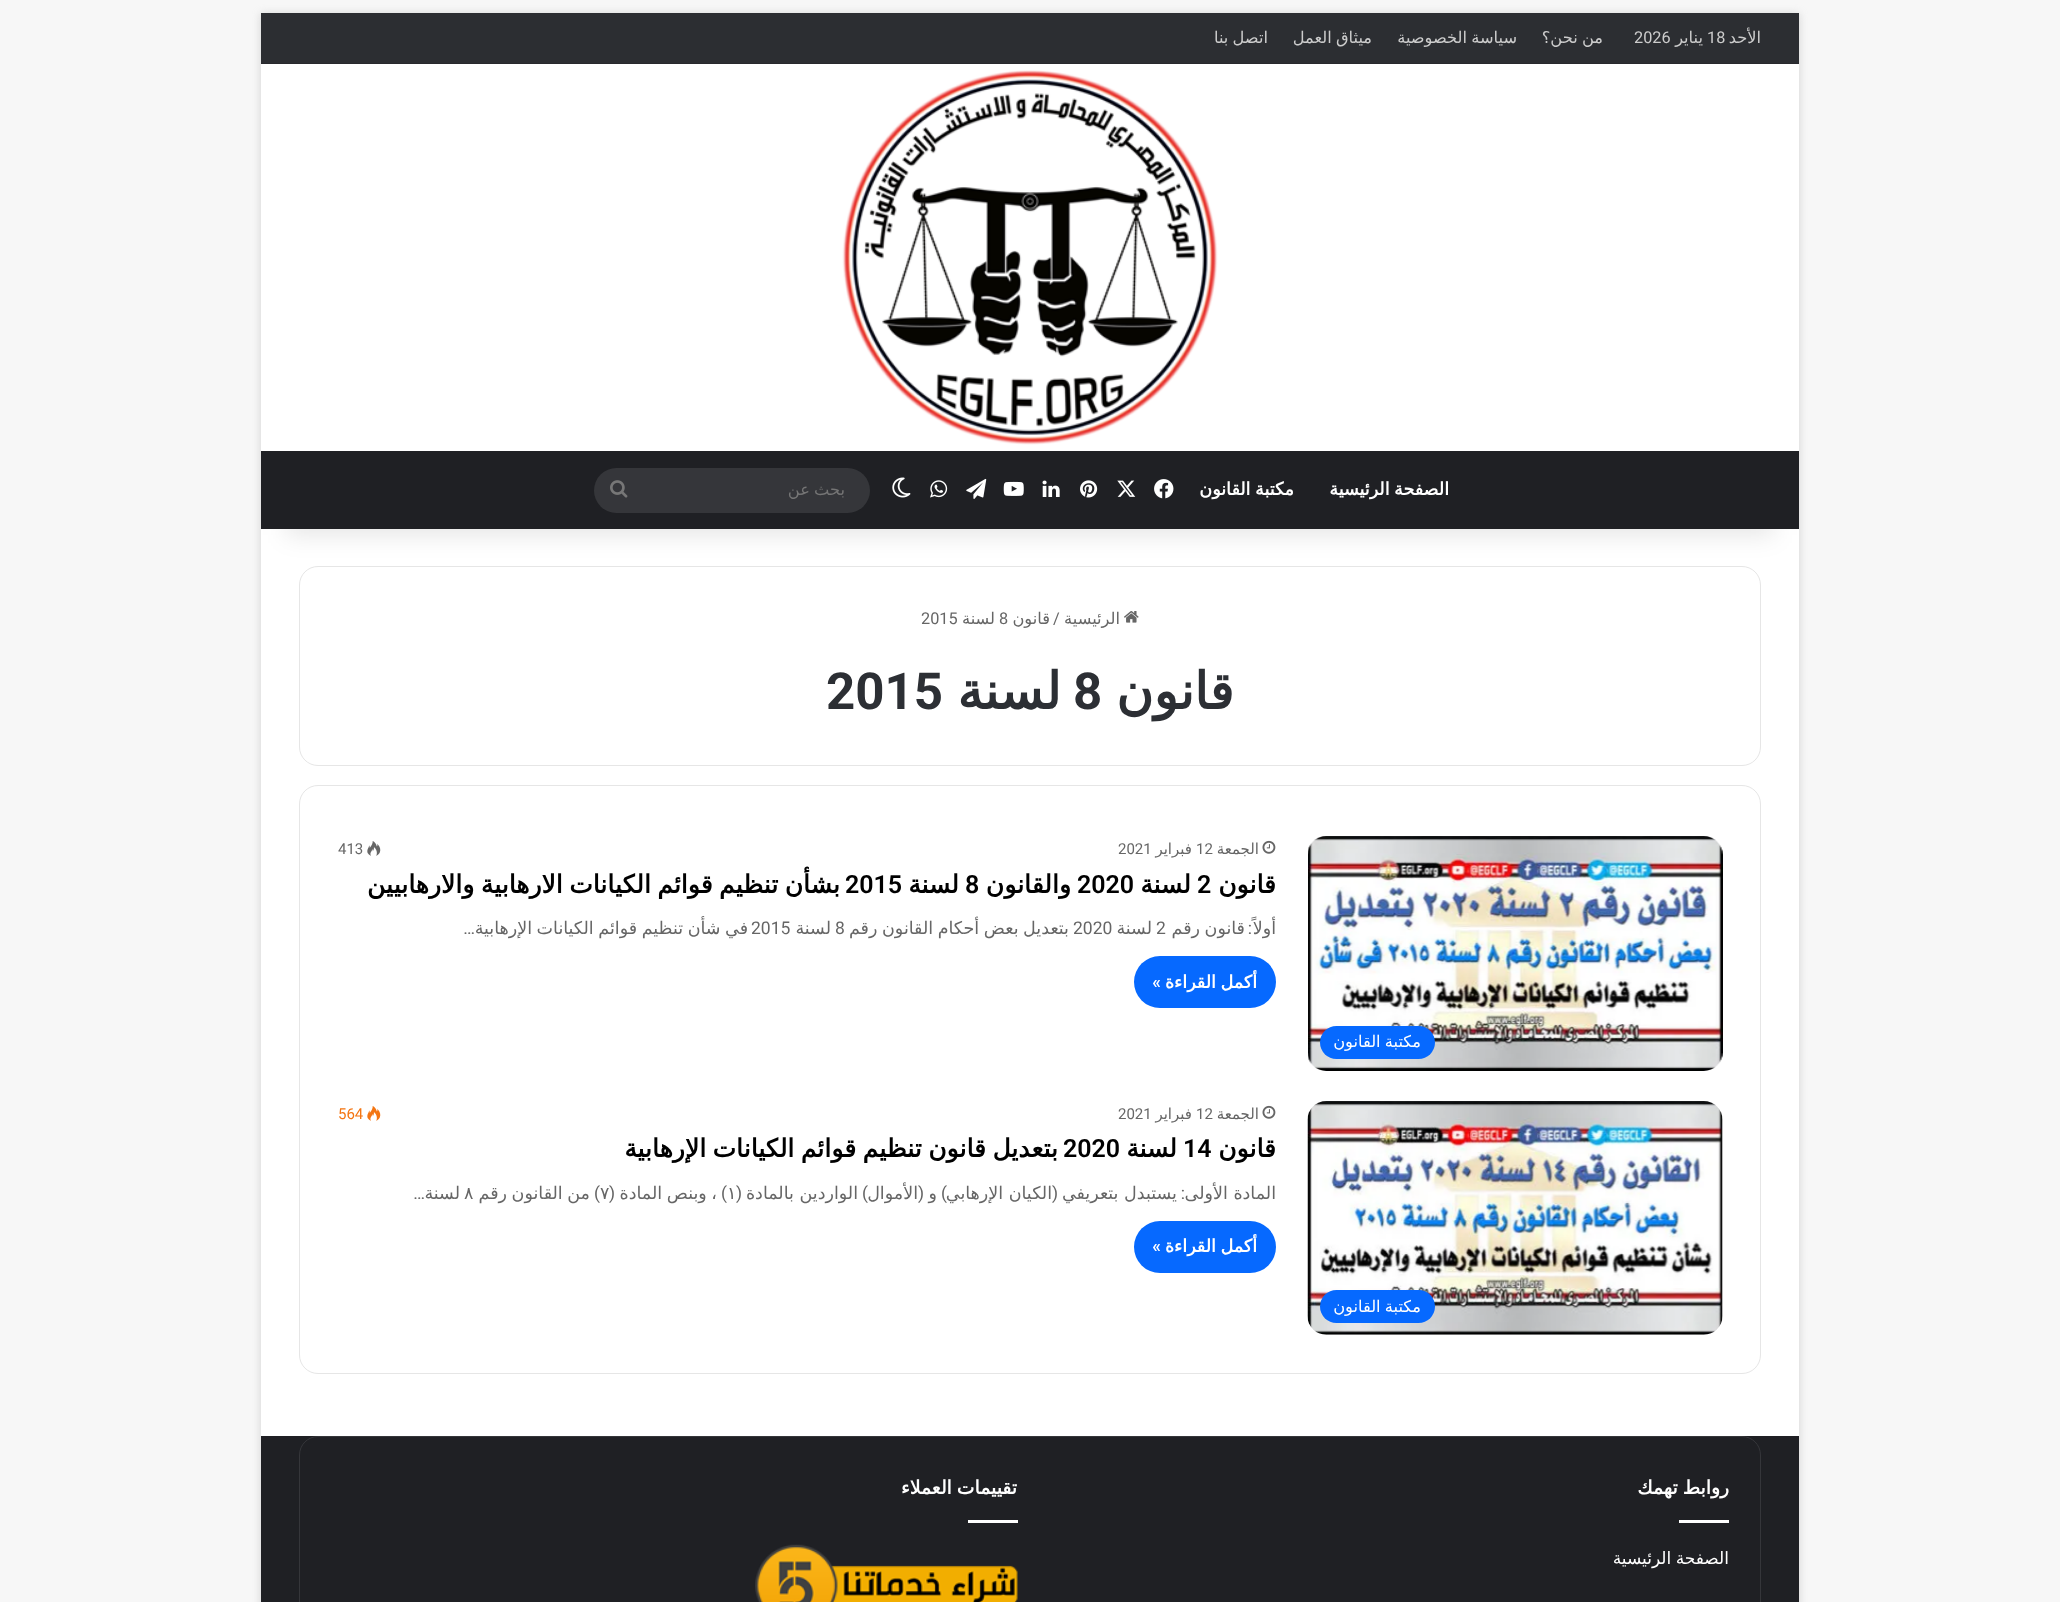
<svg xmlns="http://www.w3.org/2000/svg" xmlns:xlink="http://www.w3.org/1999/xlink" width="2060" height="1602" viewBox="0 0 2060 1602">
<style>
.cls-1{font:16.25px DejaVu Sans;direction:rtl;fill:#cccccc}
.cls-2{font:16.25px Roboto;fill:#cccccc}
.cls-3{font:bold 17.5px DejaVu Sans;direction:rtl;fill:#ffffff}
.cls-4{font:16.25px DejaVu Sans;direction:rtl;fill:#757575}
.cls-5{font:16.25px DejaVu Sans;direction:rtl;fill:#666666}
.cls-6{font:16.25px Roboto;fill:#666666}
.cls-7{font:bold 51px DejaVu Sans;direction:rtl;fill:#2c2f34}
.cls-8{font:bold 51px Roboto;fill:#2c2f34}
.cls-9{font:15px DejaVu Sans;direction:rtl;fill:#666666}
.cls-10{font:15px Roboto;fill:#666666}
.cls-11{font:bold 25px DejaVu Sans;direction:rtl;fill:#000000}
.cls-12{font:600 25px Roboto;fill:#000000}
.cls-13{font:17.5px Roboto;direction:rtl;fill:#666666}
.cls-14{font:17.5px DejaVu Sans;direction:rtl;fill:#666666}
.cls-15{font:17.5px Roboto;fill:#666666}
.cls-16{font:600 17.5px Roboto;direction:rtl;fill:#ffffff}
.cls-17{font:16.25px DejaVu Sans;direction:rtl;fill:#ffffff}
.cls-18{font:15px Roboto;fill:#f47512}
.cls-19{font:17.5px DejaVu Sans;fill:#666666}
.cls-20{font:bold 18.75px DejaVu Sans;direction:rtl;fill:#ffffff}
.cls-21{font:17px DejaVu Sans;direction:rtl;fill:#ffffff}
</style>
<rect width="100%" height="100%" fill="#f7f7f7"/>
<rect fill="#ababab" fill-opacity="0.5" filter="blur(4.5px)" x="261" y="14" width="1538" height="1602"/>
<rect fill="#ffffff" x="261" y="529" width="1538" height="907"/>
<rect fill="none" stroke="#e6e6e6" x="299.5" y="566.5" width="1461" height="199" rx="18.5"/>
<rect fill="#000000" fill-opacity="0.1" filter="blur(12.5px)" x="286" y="69" width="1488" height="466"/>
<rect fill="#ffffff" x="261" y="64" width="1538" height="387"/>
<rect fill="#2c2e32" x="261" y="13" width="1538" height="50"/>
<rect fill="#28292d" x="261" y="63" width="1538" height="1"/>
<image xlink:href="image0.png" x="842" y="70" width="376" height="375"/>
<rect fill="#1f2024" x="261" y="451" width="1538" height="78"/>
<image xlink:href="image1.png" x="1154" y="479" width="20" height="20"/>
<image xlink:href="image2.png" x="1117" y="480" width="19" height="17"/>
<image xlink:href="image3.png" x="1080" y="480" width="18" height="18"/>
<image xlink:href="image4.png" x="1042" y="480" width="18" height="17"/>
<image xlink:href="image5.png" x="1003" y="481" width="21" height="15"/>
<image xlink:href="image6.png" x="966" y="478" width="21" height="21"/>
<image xlink:href="image7.png" x="930" y="480" width="18" height="18"/>
<image xlink:href="image8.png" x="892" y="477" width="19" height="21"/>
<rect fill="#35363a" x="594" y="468" width="276" height="45" rx="22.5"/>
<image xlink:href="image9.png" x="610" y="480" width="18" height="18"/>
<image xlink:href="image10.png" x="1124" y="611" width="15" height="12"/>
<rect fill="none" stroke="#e6e6e6" x="299.5" y="785.5" width="1461" height="588" rx="18.5"/>
<image xlink:href="image11.png" x="1262" y="840" width="14" height="14"/>
<image xlink:href="image12.png" x="367" y="841" width="14" height="15"/>
<rect fill="#0669ff" x="1134" y="956" width="142" height="52" rx="26"/>
<image xlink:href="image13.png" x="1308" y="836" width="415" height="235"/>
<rect fill="#0669ff" x="1320" y="1026" width="115" height="33" rx="16.5"/>
<image xlink:href="image11.png" x="1262" y="1105" width="14" height="14"/>
<image xlink:href="image14.png" x="367" y="1106" width="14" height="15"/>
<rect fill="#0669ff" x="1134" y="1221" width="142" height="52" rx="26"/>
<image xlink:href="image15.png" x="1307" y="1101" width="416" height="234"/>
<rect fill="#0669ff" x="1320" y="1290" width="115" height="33" rx="16.5"/>
<rect fill="#1f2024" x="261" y="1436" width="1538" height="166"/>
<rect fill="none" stroke="#35363a" x="299.5" y="1436.5" width="1461" height="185" rx="18.5"/>
<rect fill="#ffffff" x="1679" y="1520" width="50" height="3"/>
<rect fill="#ffffff" x="968" y="1520" width="50" height="3"/>
<image xlink:href="image16.png" x="755" y="1544" width="263" height="58"/>
<text class="cls-1" x="1761" y="43">الأحد</text>
<text class="cls-2" x="1707" y="43">18</text>
<text class="cls-1" x="1703" y="43">يناير</text>
<text class="cls-2" x="1634" y="43">2026</text>
<text class="cls-1" x="1603" y="43" word-spacing="-1">من نحن؟</text>
<text class="cls-1" x="1517" y="43" word-spacing="-1">سياسة الخصوصية</text>
<text class="cls-1" x="1372" y="43" word-spacing="-1">ميثاق العمل</text>
<text class="cls-1" x="1268" y="43" word-spacing="-1">اتصل بنا</text>
<text class="cls-3" x="1449" y="495" word-spacing="-1">الصفحة الرئيسية</text>
<text class="cls-3" x="1294" y="495" word-spacing="-1">مكتبة القانون</text>
<text class="cls-4" x="845" y="495" word-spacing="-1">بحث عن</text>
<text class="cls-5" x="1120" y="624">الرئيسية</text>
<text class="cls-6" x="1053" y="624">/</text>
<text class="cls-5" x="1050" y="624">قانون</text>
<text class="cls-6" x="999" y="624">8</text>
<text class="cls-5" x="995" y="624">لسنة</text>
<text class="cls-6" x="921" y="624">2015</text>
<text class="cls-7" x="1234" y="709">قانون</text>
<text class="cls-8" x="1073" y="709">8</text>
<text class="cls-7" x="1061" y="709">لسنة</text>
<text class="cls-8" x="826" y="709">2015</text>
<text class="cls-9" x="1259" y="854">الجمعة</text>
<text class="cls-10" x="1196" y="854">12</text>
<text class="cls-9" x="1192" y="854">فبراير</text>
<text class="cls-10" x="1118" y="854">2021</text>
<text class="cls-10" x="338" y="854">413</text>
<text class="cls-11" x="1276" y="893">قانون</text>
<text class="cls-12" x="1197" y="893">2</text>
<text class="cls-11" x="1191" y="893">لسنة</text>
<text class="cls-12" x="1077" y="893">2020</text>
<text class="cls-11" x="1071" y="893">والقانون</text>
<text class="cls-12" x="965" y="893">8</text>
<text class="cls-11" x="959" y="893">لسنة</text>
<text class="cls-12" x="845" y="893">2015</text>
<text class="cls-11" x="840" y="893" word-spacing="-1.5">بشأن تنظيم قوائم الكيانات الارهابية والارهابيين</text>
<text class="cls-13" x="1252" y="934">:</text>
<text class="cls-14" x="1276" y="934">أولاً</text>
<text class="cls-14" x="1245" y="934" word-spacing="-1">قانون رقم</text>
<text class="cls-15" x="1156" y="934">2</text>
<text class="cls-14" x="1152" y="934">لسنة</text>
<text class="cls-15" x="1073" y="934">2020</text>
<text class="cls-14" x="1069" y="934" word-spacing="-1">بتعديل بعض أحكام القانون رقم</text>
<text class="cls-15" x="835" y="934">8</text>
<text class="cls-14" x="831" y="934">لسنة</text>
<text class="cls-15" x="751" y="934">2015</text>
<text class="cls-14" x="748" y="934" word-spacing="-1">في شأن تنظيم قوائم الكيانات الإرهابية</text>
<text class="cls-13" x="475" y="934">…</text>
<text class="cls-3" x="1257" y="988" word-spacing="-1">أكمل القراءة</text>
<text class="cls-16" x="1161" y="988">»</text>
<text class="cls-17" x="1421" y="1047" word-spacing="-1">مكتبة القانون</text>
<text class="cls-9" x="1259" y="1119">الجمعة</text>
<text class="cls-10" x="1196" y="1119">12</text>
<text class="cls-9" x="1192" y="1119">فبراير</text>
<text class="cls-10" x="1118" y="1119">2021</text>
<text class="cls-18" x="338" y="1119">564</text>
<text class="cls-11" x="1276" y="1157">قانون</text>
<text class="cls-12" x="1183" y="1157">14</text>
<text class="cls-11" x="1177" y="1157">لسنة</text>
<text class="cls-12" x="1063" y="1157">2020</text>
<text class="cls-11" x="1058" y="1157" word-spacing="-1.5">بتعديل قانون تنظيم قوائم الكيانات الإرهابية</text>
<text class="cls-14" x="1276" y="1199">المادة الأولى</text>
<text class="cls-13" x="1185" y="1199">:</text>
<text class="cls-14" x="1177" y="1199">يستبدل بتعريفي</text>
<text class="cls-13" x="1058" y="1199">(</text>
<text class="cls-14" x="1052" y="1199">الكيان الإرهابي</text>
<text class="cls-13" x="947" y="1199">)</text>
<text class="cls-14" x="937" y="1199">و</text>
<text class="cls-13" x="924" y="1199">(</text>
<text class="cls-14" x="918" y="1199">الأموال</text>
<text class="cls-13" x="868" y="1199">)</text>
<text class="cls-14" x="858" y="1199">الواردين بالمادة</text>
<text class="cls-13" x="742" y="1199">(</text>
<text class="cls-19" x="727" y="1199">١</text>
<text class="cls-13" x="727" y="1199">)</text>
<text class="cls-14" x="717" y="1199" word-spacing="-1">، وبنص المادة</text>
<text class="cls-13" x="615" y="1199">(</text>
<text class="cls-19" x="600" y="1199">۷</text>
<text class="cls-13" x="600" y="1199">)</text>
<text class="cls-14" x="590" y="1199" word-spacing="-1">من القانون رقم</text>
<text class="cls-19" x="464" y="1199">٨</text>
<text class="cls-14" x="460" y="1199">لسنة</text>
<text class="cls-13" x="425" y="1199">…</text>
<text class="cls-3" x="1257" y="1252" word-spacing="-1">أكمل القراءة</text>
<text class="cls-16" x="1161" y="1252">»</text>
<text class="cls-17" x="1421" y="1312" word-spacing="-1">مكتبة القانون</text>
<text class="cls-20" x="1729" y="1494" word-spacing="-1">روابط تهمك</text>
<text class="cls-21" x="1729" y="1564" word-spacing="-1">الصفحة الرئيسية</text>
<text class="cls-20" x="1017" y="1494" word-spacing="-1">تقييمات العملاء</text>
</svg>
